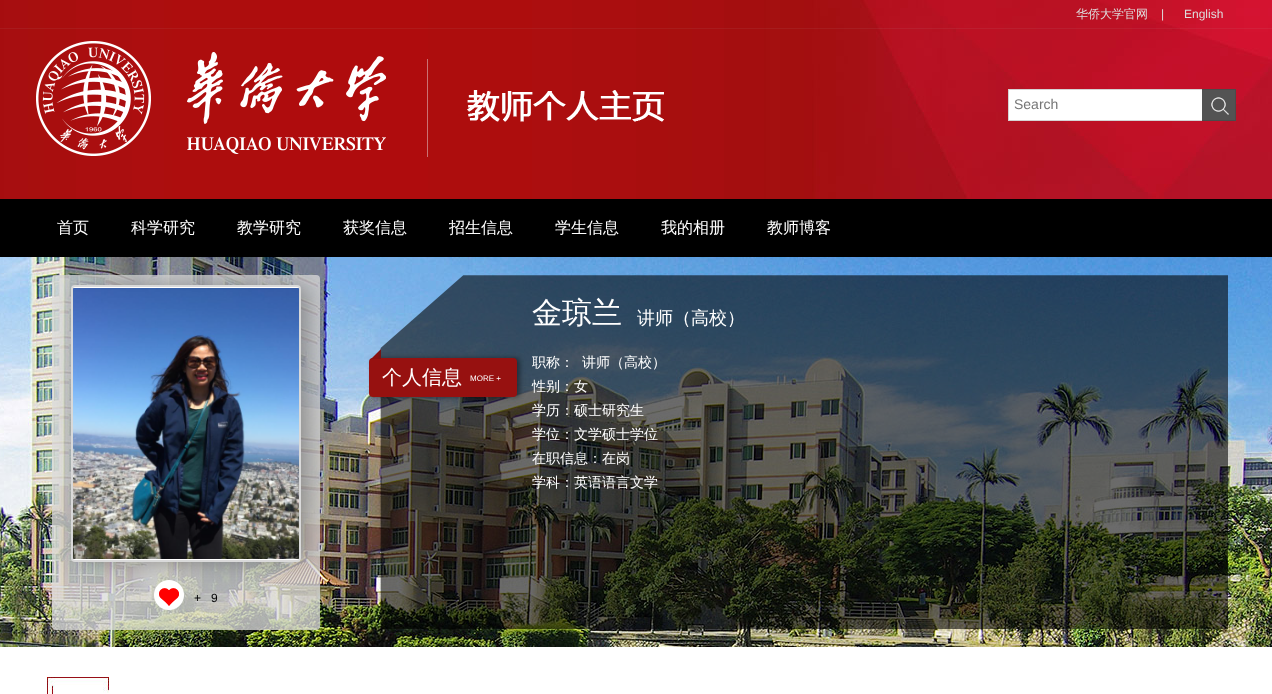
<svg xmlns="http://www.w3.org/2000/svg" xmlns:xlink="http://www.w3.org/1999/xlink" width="1272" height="694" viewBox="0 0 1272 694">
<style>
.cls-1{font:500 12px WenQuanYi Zen Hei;fill:#dedede}
.cls-2{font:12px Liberation Sans;fill:#dedede}
.cls-3{font:14px Liberation Sans;fill:#757575}
.cls-4{font:500 16px WenQuanYi Zen Hei;fill:#ffffff}
.cls-5{font:500 20px WenQuanYi Zen Hei;fill:#ffffff}
.cls-6{font:8px Liberation Sans;fill:#ffffff}
.cls-7{font:500 30px WenQuanYi Zen Hei;fill:#ffffff}
.cls-8{font:500 18px WenQuanYi Zen Hei;fill:#ffffff}
.cls-9{font:500 14px WenQuanYi Zen Hei;fill:#ffffff}
.cls-10{font:12px Liberation Sans;fill:#000000}
</style>
<defs>
<clipPath id="clip1"><rect x="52" y="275" width="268" height="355" rx="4"/></clipPath>
</defs>
<rect width="100%" height="100%" fill="#ffffff"/>
<image xlink:href="image0.png" x="0" y="0" width="1272" height="199"/>
<rect fill="#b9b9b9" fill-opacity="0.08" x="0" y="28" width="1272" height="1"/>
<image xlink:href="image1.png" x="36" y="41" width="628" height="116"/>
<rect fill="#ffffff" stroke="#d4d4d4" x="1008.5" y="89.5" width="227" height="31"/>
<rect fill="#282828" fill-opacity="0.8" x="1202" y="89" width="34" height="32"/>
<image xlink:href="image2.png" x="1211" y="97" width="18" height="18"/>
<image xlink:href="image3.png" x="0" y="257" width="1272" height="390"/>
<rect fill="#dcdcdc" fill-opacity="0.77" x="52" y="275" width="268" height="355" rx="4"/>
<g clip-path="url(#clip1)">
<rect fill="#000000" fill-opacity="0.3" filter="blur(10.5px)" x="78" y="285" width="230" height="277" rx="4"/>
</g>
<rect fill="#000000" x="0" y="199" width="1272" height="58"/>
<image xlink:href="image4.png" x="380" y="275" width="848" height="354"/>
<rect fill="#000000" fill-opacity="0.4" filter="blur(2.5px)" x="372" y="358" width="148" height="39" rx="4"/>
<rect fill="#971110" x="369" y="358" width="148" height="39" rx="4"/>
<image xlink:href="image5.png" x="371" y="349" width="10" height="10"/>
<rect fill="#ffffff" stroke="#d9d9d9" stroke-width="2" x="72" y="286" width="228" height="275" rx="3"/>
<image xlink:href="image6.png" x="73" y="288" width="226" height="271"/>
<image xlink:href="image7.png" x="154" y="580" width="30" height="30"/>
<image xlink:href="image8.png" x="47" y="677" width="62" height="17"/>
<text class="cls-1" x="1076" y="18">华侨大学官网</text>
<text class="cls-2" x="1161" y="18">|</text>
<text class="cls-2" x="1184" y="18">English</text>
<text class="cls-3" x="1014" y="109">Search</text>
<text class="cls-4" x="57" y="233">首页</text>
<text class="cls-4" x="131" y="233">科学研究</text>
<text class="cls-4" x="237" y="233">教学研究</text>
<text class="cls-4" x="343" y="233">获奖信息</text>
<text class="cls-4" x="449" y="233">招生信息</text>
<text class="cls-4" x="555" y="233">学生信息</text>
<text class="cls-4" x="661" y="233">我的相册</text>
<text class="cls-4" x="767" y="233">教师博客</text>
<text class="cls-5" x="382" y="384">个人信息</text>
<text class="cls-6" x="470" y="381">MORE +</text>
<text class="cls-7" x="532" y="323">金琼兰</text>
<text class="cls-8" x="637" y="324">讲师（高校）</text>
<text class="cls-9" x="532" y="367">职称：</text>
<text class="cls-9" x="582" y="367">讲师（高校）</text>
<text class="cls-9"><tspan x="532" y="391">性别：女</tspan><tspan x="532" y="415">学历：硕士研究生</tspan><tspan x="532" y="439">学位：文学硕士学位</tspan><tspan x="532" y="463">在职信息：在岗</tspan><tspan x="532" y="487">学科：英语语言文学</tspan></text>
<text class="cls-10" x="194" y="602">+</text>
<text class="cls-10" x="211" y="602">9</text>
</svg>
